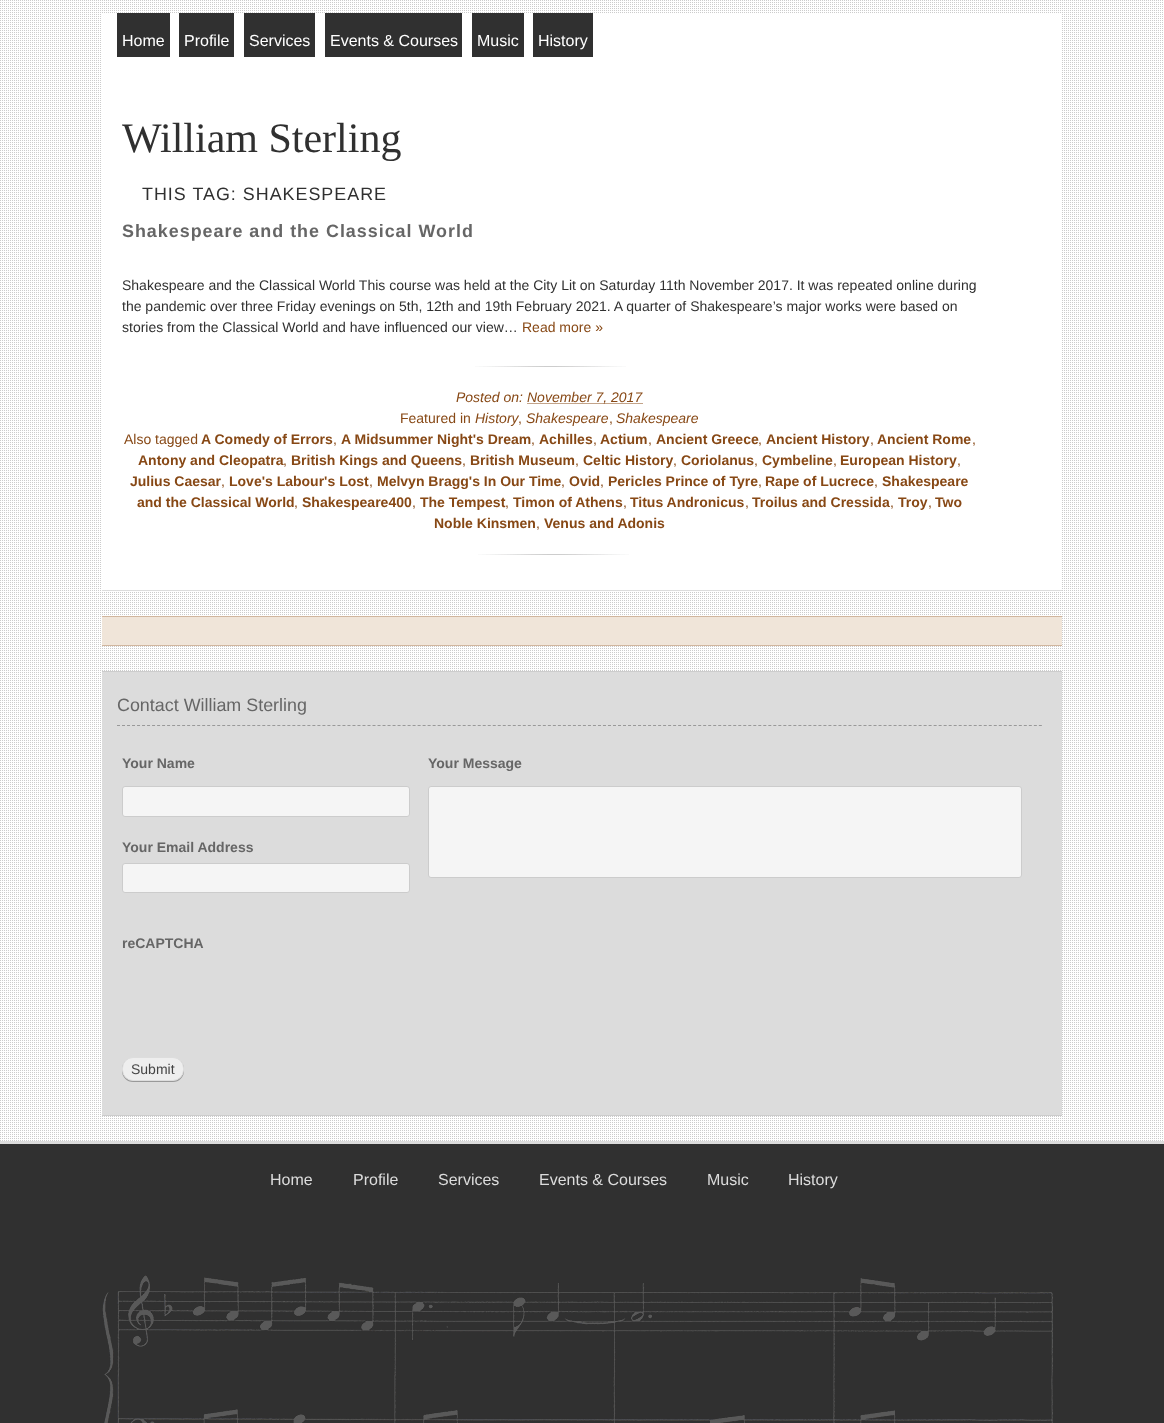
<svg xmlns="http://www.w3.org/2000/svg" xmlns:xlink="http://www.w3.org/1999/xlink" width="1164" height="1423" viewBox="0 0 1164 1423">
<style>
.cls-1{font:16px Liberation Sans;fill:#ffffff}
.cls-2{font:42px Liberation Serif;fill:#303030}
.cls-3{font:17.9px Liberation Sans;letter-spacing:1px;fill:#303030}
.cls-4{font:bold 17.9px Liberation Sans;letter-spacing:1px;fill:#666666}
.cls-5{font:14px Liberation Sans;fill:#303030}
.cls-6{font:14px Liberation Sans;fill:#874815}
.cls-7{font:italic 14px Liberation Sans;fill:#874815}
.cls-8{font:bold 14px Liberation Sans;fill:#874815}
.cls-9{font:17.9px Liberation Sans;fill:#666666}
.cls-10{font:bold 14px Liberation Sans;fill:#666666}
.cls-11{font:14px Liberation Sans;fill:#444444}
.cls-12{font:16px Liberation Sans;fill:#dcdcdc}
</style>
<rect width="100%" height="100%" fill="#ffffff"/>
<image xlink:href="image0.png" x="0" y="0" width="1164" height="1141"/>
<rect fill="#ffffff" x="102" y="14" width="959" height="575"/>
<rect fill="#dcdcdc" x="102" y="590" width="960" height="1"/>
<rect fill="#303030" x="117" y="13" width="53" height="44"/>
<rect fill="#303030" x="179" y="13" width="55" height="44"/>
<rect fill="#303030" x="244" y="13" width="71" height="44"/>
<rect fill="#303030" x="325" y="13" width="137" height="44"/>
<rect fill="#303030" x="472" y="13" width="52" height="44"/>
<rect fill="#303030" x="533" y="13" width="60" height="44"/>
<image xlink:href="image1.png" x="478" y="554" width="151" height="1"/>
<image xlink:href="image1.png" x="475" y="366" width="151" height="1"/>
<path fill="none" stroke="#874815" stroke-dasharray="1 1" d="M527.5 403.5H642.5"/>
<rect fill="#f0e5d9" x="102" y="617" width="960" height="28"/>
<rect fill="#d1b69e" x="102" y="616" width="960" height="1"/>
<rect fill="#d1b69e" x="102" y="645" width="960" height="1"/>
<rect fill="#dcdcdc" x="102" y="672" width="960" height="443"/>
<rect fill="#cccccc" x="102" y="671" width="960" height="1"/>
<rect fill="#cccccc" x="102" y="1115" width="960" height="1"/>
<path fill="none" stroke="#999999" stroke-dasharray="3 2.01" d="M117 725.5H1042"/>
<rect fill="#f5f5f5" stroke="#cccccc" x="122.5" y="786.5" width="287" height="30" rx="2.5"/>
<rect fill="#f5f5f5" stroke="#cccccc" x="122.5" y="863.5" width="287" height="29" rx="2.5"/>
<rect fill="#f5f5f5" stroke="#cccccc" x="428.5" y="786.5" width="593" height="91" rx="2.5"/>
<rect fill="#999999" filter="blur(0.5px)" x="122" y="1058" width="62" height="24" rx="11"/>
<rect fill="#eeeeee" stroke="#dddddd" x="122.5" y="1057.5" width="61" height="23" rx="10.5"/>
<rect fill="#303030" x="0" y="1144" width="1164" height="279"/>
<rect fill="#dcdcdc" x="0" y="1141" width="1164" height="3"/>
<image xlink:href="image2.png" x="102" y="1275" width="951" height="148"/>
<text class="cls-1" x="122" y="46">Home</text>
<text class="cls-1" x="184" y="46">Profile</text>
<text class="cls-1" x="249" y="46">Services</text>
<text class="cls-1" x="330" y="46">Events &amp; Courses</text>
<text class="cls-1" x="477" y="46">Music</text>
<text class="cls-1" x="538" y="46">History</text>
<text class="cls-2" x="122" y="152">William Sterling</text>
<text class="cls-3" x="142" y="200">THIS TAG: SHAKESPEARE</text>
<text class="cls-4" x="122" y="237">Shakespeare and the Classical World</text>
<text class="cls-5"><tspan x="122" y="290">Shakespeare and the Classical World This course was held at the City Lit on Saturday 11th November 2017. It was repeated online during</tspan><tspan x="122" y="311">the pandemic over three Friday evenings on 5th, 12th and 19th February 2021. A quarter of Shakespeare’s major works were based on</tspan><tspan x="122" y="332">stories from the Classical World and have influenced our view…</tspan></text>
<text class="cls-6" x="522" y="332">Read more »</text>
<text class="cls-7" x="456" y="402">Posted on:</text>
<text class="cls-7" x="527" y="402">November 7, 2017</text>
<text class="cls-6" x="400" y="423">Featured in</text>
<text class="cls-7" x="475" y="423">History</text>
<text class="cls-6" x="518" y="423">,</text>
<text class="cls-7" x="526" y="423">Shakespeare</text>
<text class="cls-6" x="609" y="423">,</text>
<text class="cls-7" x="616" y="423">Shakespeare</text>
<text class="cls-6" x="124" y="444">Also tagged</text>
<text class="cls-8" x="201" y="444">A Comedy of Errors</text>
<text class="cls-6" x="333" y="444">,</text>
<text class="cls-8" x="341" y="444">A Midsummer Night's Dream</text>
<text class="cls-6" x="531" y="444">,</text>
<text class="cls-8" x="539" y="444">Achilles</text>
<text class="cls-6" x="593" y="444">,</text>
<text class="cls-8" x="600" y="444">Actium</text>
<text class="cls-6" x="648" y="444">,</text>
<text class="cls-8" x="656" y="444">Ancient Greece</text>
<text class="cls-6" x="758" y="444">,</text>
<text class="cls-8" x="766" y="444">Ancient History</text>
<text class="cls-6" x="870" y="444">,</text>
<text class="cls-8" x="877" y="444">Ancient Rome</text>
<text class="cls-6" x="972" y="444">,</text>
<text class="cls-8" x="138" y="465">Antony and Cleopatra</text>
<text class="cls-6" x="283" y="465">,</text>
<text class="cls-8" x="291" y="465">British Kings and Queens</text>
<text class="cls-6" x="462" y="465">,</text>
<text class="cls-8" x="470" y="465">British Museum</text>
<text class="cls-6" x="575" y="465">,</text>
<text class="cls-8" x="583" y="465">Celtic History</text>
<text class="cls-6" x="673" y="465">,</text>
<text class="cls-8" x="681" y="465">Coriolanus</text>
<text class="cls-6" x="754" y="465">,</text>
<text class="cls-8" x="762" y="465">Cymbeline</text>
<text class="cls-6" x="833" y="465">,</text>
<text class="cls-8" x="840" y="465">European History</text>
<text class="cls-6" x="957" y="465">,</text>
<text class="cls-8" x="130" y="486">Julius Caesar</text>
<text class="cls-6" x="221" y="486">,</text>
<text class="cls-8" x="229" y="486">Love's Labour's Lost</text>
<text class="cls-6" x="369" y="486">,</text>
<text class="cls-8" x="377" y="486">Melvyn Bragg's In Our Time</text>
<text class="cls-6" x="561" y="486">,</text>
<text class="cls-8" x="569" y="486">Ovid</text>
<text class="cls-6" x="600" y="486">,</text>
<text class="cls-8" x="608" y="486">Pericles Prince of Tyre</text>
<text class="cls-6" x="758" y="486">,</text>
<text class="cls-8" x="765" y="486">Rape of Lucrece</text>
<text class="cls-6" x="874" y="486">,</text>
<text class="cls-8" x="882" y="486">Shakespeare</text>
<text class="cls-8" x="137" y="507">and the Classical World</text>
<text class="cls-6" x="294" y="507">,</text>
<text class="cls-8" x="302" y="507">Shakespeare400</text>
<text class="cls-6" x="412" y="507">,</text>
<text class="cls-8" x="420" y="507">The Tempest</text>
<text class="cls-6" x="505" y="507">,</text>
<text class="cls-8" x="513" y="507">Timon of Athens</text>
<text class="cls-6" x="623" y="507">,</text>
<text class="cls-8" x="630" y="507">Titus Andronicus</text>
<text class="cls-6" x="745" y="507">,</text>
<text class="cls-8" x="752" y="507">Troilus and Cressida</text>
<text class="cls-6" x="890" y="507">,</text>
<text class="cls-8" x="898" y="507">Troy</text>
<text class="cls-6" x="928" y="507">,</text>
<text class="cls-8" x="935" y="507">Two</text>
<text class="cls-8" x="434" y="528">Noble Kinsmen</text>
<text class="cls-6" x="536" y="528">,</text>
<text class="cls-8" x="544" y="528">Venus and Adonis</text>
<text class="cls-9" x="117" y="711">Contact William Sterling</text>
<text class="cls-10" x="122" y="768">Your Name</text>
<text class="cls-10" x="122" y="852">Your Email Address</text>
<text class="cls-10" x="428" y="768">Your Message</text>
<text class="cls-10" x="122" y="948">reCAPTCHA</text>
<text class="cls-11" x="131" y="1074">Submit</text>
<text class="cls-12" x="270" y="1185">Home</text>
<text class="cls-12" x="353" y="1185">Profile</text>
<text class="cls-12" x="438" y="1185">Services</text>
<text class="cls-12" x="539" y="1185">Events &amp; Courses</text>
<text class="cls-12" x="707" y="1185">Music</text>
<text class="cls-12" x="788" y="1185">History</text>
</svg>
